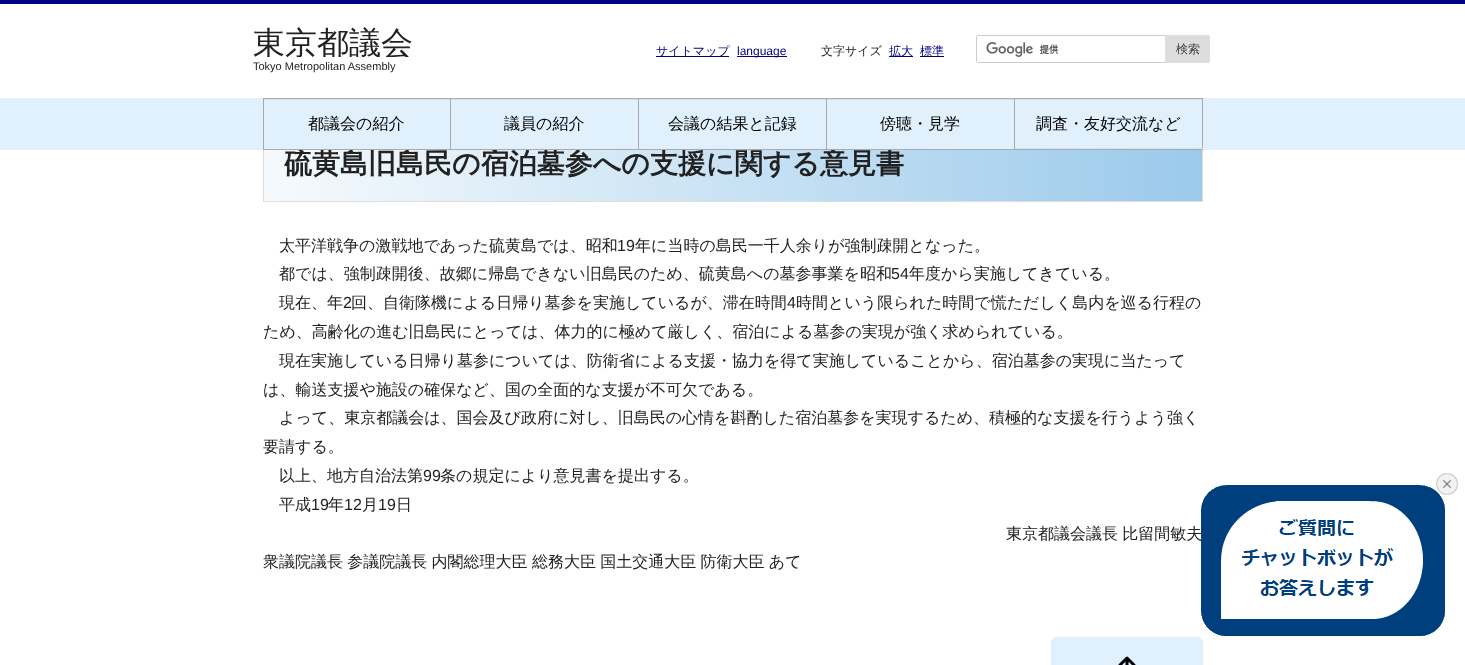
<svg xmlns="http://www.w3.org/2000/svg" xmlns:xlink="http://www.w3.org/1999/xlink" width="1465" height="665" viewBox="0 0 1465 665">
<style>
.cls-1{font:500 12px WenQuanYi Zen Hei;fill:#000080}
.cls-2{font:12px Liberation Sans;fill:#000080}
.cls-3{font:500 12px WenQuanYi Zen Hei;fill:#222222}
.cls-4{font:500 12px WenQuanYi Zen Hei;fill:#444444}
.cls-5{font:11px Liberation Sans;fill:#222222}
.cls-6{font:bold 28px WenQuanYi Zen Hei;fill:#222222}
.cls-7{font:500 16px WenQuanYi Zen Hei;fill:#000000}
.cls-8{font:500 16px WenQuanYi Zen Hei;fill:#222222}
.cls-9{font:16px Liberation Sans;fill:#222222}
</style>
<defs>
<linearGradient id="g1" gradientUnits="userSpaceOnUse" x1="264" y1="162" x2="1202" y2="162"><stop offset="0" stop-color="#f6fafd"/><stop offset="1" stop-color="#9bcaeb"/></linearGradient>
</defs>
<rect width="100%" height="100%" fill="#ffffff"/>
<rect fill="#000080" x="0" y="0" width="1465" height="4"/>
<rect fill="#000080" x="656" y="56" width="73" height="1"/>
<rect fill="#000080" x="737" y="56" width="50" height="1"/>
<rect fill="#000080" x="889" y="56" width="24" height="1"/>
<rect fill="#000080" x="920" y="56" width="24" height="1"/>
<image xlink:href="image0.png" x="986" y="42" width="73" height="15"/>
<rect fill="#cccccc" x="977" y="35" width="189" height="1"/>
<rect fill="#cccccc" x="977" y="62" width="189" height="1"/>
<rect fill="#cccccc" x="976" y="36" width="1" height="26"/>
<path fill="#dddddd" d="M1165 35H1208C1209 35 1210 36 1210 37V61C1210 62 1209 63 1208 63H1165Z"/>
<image xlink:href="image1.png" x="253" y="27" width="159" height="30"/>
<rect fill="url(#g1)" x="264" y="150" width="938" height="51"/>
<rect fill="none" stroke="#dddddd" x="263.5" y="122.5" width="939" height="79"/>
<path fill="#e0f1fd" d="M1057 637H1197C1200.5 637 1203 639.5 1203 643V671H1051V643C1051 639.5 1053.5 637 1057 637Z"/>
<path fill="none" stroke="#000000" stroke-width="3" stroke-linecap="round" stroke-linejoin="round" d="M1127 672V659M1120 665L1127 658L1134 665"/>
<text class="cls-1" x="656" y="55">サイトマップ</text>
<text class="cls-2" x="737" y="55">language</text>
<text class="cls-3" x="821" y="55">文字サイズ</text>
<text class="cls-1" x="889" y="55">拡大</text>
<text class="cls-1" x="920" y="55">標準</text>
<text class="cls-4" x="1176" y="53">検索</text>
<text class="cls-5" x="253" y="70">Tokyo Metropolitan Assembly</text>
<text class="cls-6" x="284" y="173">硫黄島旧島民の宿泊墓参への支援に関する意見書</text>
<rect fill="#e0f1fd" x="0" y="98" width="1465" height="52"/>
<text class="cls-7" x="1036" y="129">調査・友好交流など</text>
<rect fill="#d6e3ea" x="1015" y="99" width="187" height="1"/>
<rect fill="#aaaaaa" x="1202" y="99" width="1" height="50"/>
<rect fill="#d6e3ea" x="1015" y="148" width="188" height="1"/>
<text class="cls-7" x="880" y="129">傍聴・見学</text>
<rect fill="#d6e3ea" x="827" y="99" width="187" height="1"/>
<rect fill="#aaaaaa" x="1014" y="99" width="1" height="50"/>
<text class="cls-7" x="668" y="129">会議の結果と記録</text>
<rect fill="#d6e3ea" x="639" y="99" width="187" height="1"/>
<rect fill="#aaaaaa" x="826" y="99" width="1" height="50"/>
<text class="cls-7" x="504" y="129">議員の紹介</text>
<rect fill="#d6e3ea" x="451" y="99" width="187" height="1"/>
<rect fill="#aaaaaa" x="638" y="99" width="1" height="50"/>
<text class="cls-7" x="308" y="129">都議会の紹介</text>
<rect fill="#d6e3ea" x="264" y="99" width="186" height="1"/>
<rect fill="#aaaaaa" x="263" y="99" width="1" height="50"/>
<rect fill="#aaaaaa" x="450" y="99" width="1" height="50"/>
<rect fill="#aaaaaa" x="263" y="149" width="940" height="1"/>
<rect fill="#aaaaaa" x="263" y="98" width="940" height="1"/>
<text class="cls-8" x="279" y="251">太平洋戦争の激戦地であった硫黄島では、昭和</text>
<text class="cls-9" x="617" y="251">19</text>
<text class="cls-8" x="635" y="251">年に当時の島民一千人余りが強制疎開となった。</text>
<text class="cls-8" x="279" y="279">都では、強制疎開後、故郷に帰島できない旧島民のため、硫黄島への墓参事業を昭和</text>
<text class="cls-9" x="891" y="279">54</text>
<text class="cls-8" x="909" y="279">年度から実施してきている。</text>
<text class="cls-8" x="279" y="308">現在、年</text>
<text class="cls-9" x="343" y="308">2</text>
<text class="cls-8" x="351" y="308">回、自衛隊機による日帰り墓参を実施しているが、滞在時間</text>
<text class="cls-9" x="787" y="308">4</text>
<text class="cls-8" x="796" y="308">時間という限られた時間で慌ただしく島内を巡る行程の</text>
<text class="cls-8" x="263" y="337">ため、高齢化の進む旧島民にとっては、体力的に極めて厳しく、宿泊による墓参の実現が強く求められている。</text>
<text class="cls-8" x="279" y="366">現在実施している日帰り墓参については、防衛省による支援・協力を得て実施していることから、宿泊墓参の実現に当たって</text>
<text class="cls-8" x="263" y="395">は、輸送支援や施設の確保など、国の全面的な支援が不可欠である。</text>
<text class="cls-8" x="279" y="423">よって、東京都議会は、国会及び政府に対し、旧島民の心情を斟酌した宿泊墓参を実現するため、積極的な支援を行うよう強く</text>
<text class="cls-8" x="263" y="452">要請する。</text>
<text class="cls-8" x="279" y="481">以上、地方自治法第</text>
<text class="cls-9" x="423" y="481">99</text>
<text class="cls-8" x="440" y="481">条の規定により意見書を提出する。</text>
<text class="cls-8" x="279" y="510">平成</text>
<text class="cls-9" x="311" y="510">19</text>
<text class="cls-8" x="328" y="510">年</text>
<text class="cls-9" x="344" y="510">12</text>
<text class="cls-8" x="362" y="510">月</text>
<text class="cls-9" x="378" y="510">19</text>
<text class="cls-8" x="396" y="510">日</text>
<text class="cls-8" x="1006" y="539" word-spacing="-0.5">東京都議会議長 比留間敏夫</text>
<text class="cls-8" x="263" y="567" word-spacing="-0.5">衆議院議長 参議院議長 内閣総理大臣 総務大臣 国土交通大臣 防衛大臣 あて</text>
<image xlink:href="image2.png" x="1201" y="485" width="244" height="151"/>
<image xlink:href="image3.png" x="1436" y="473" width="22" height="22"/>
</svg>
